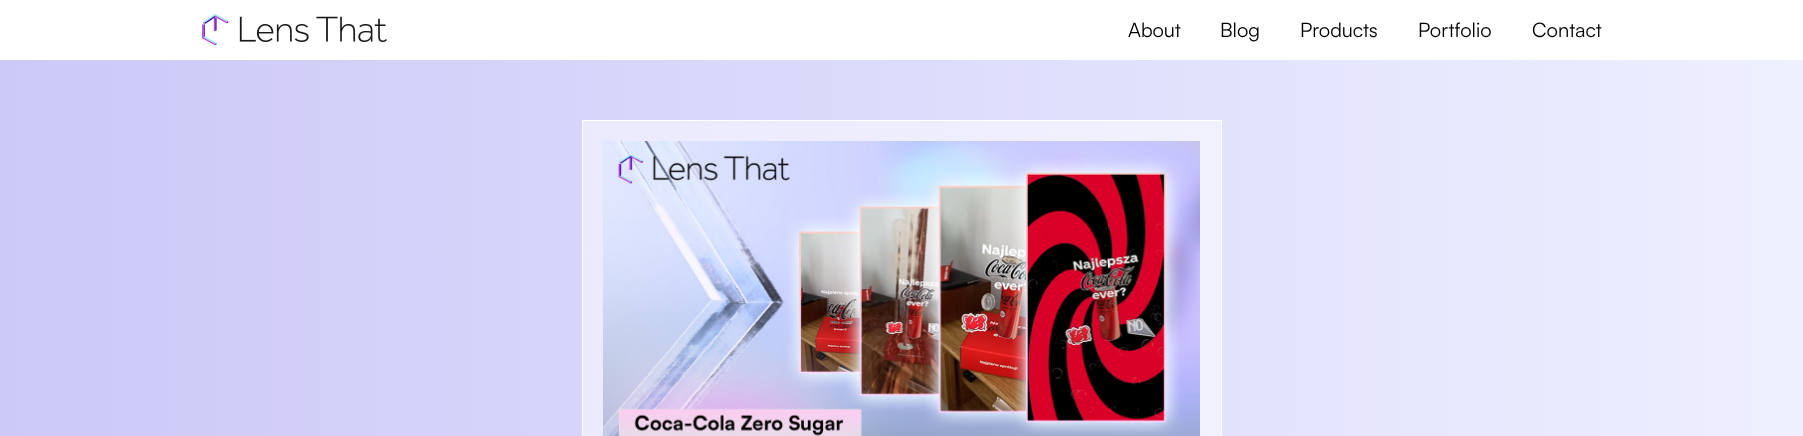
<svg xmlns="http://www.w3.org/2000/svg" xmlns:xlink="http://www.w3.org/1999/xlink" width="1803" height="436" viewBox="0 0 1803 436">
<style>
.cls-1{font:20px Satoshi;fill:#000000}
</style>
<defs>
<linearGradient id="g1" gradientUnits="userSpaceOnUse" x1="0" y1="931" x2="1803" y2="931"><stop offset="0" stop-color="#ccc8f8"/><stop offset="1" stop-color="#eeefff"/></linearGradient>
<linearGradient id="g2" gradientUnits="userSpaceOnUse" x1="0" y1="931" x2="1803" y2="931"><stop offset="0" stop-color="#e6e4fc"/><stop offset="1" stop-color="#f7f7ff"/></linearGradient>
</defs>
<rect width="100%" height="100%" fill="#ffffff"/>
<rect fill="url(#g1)" x="0" y="60" width="1803" height="376"/>
<rect fill="url(#g2)" x="583" y="121" width="638" height="315"/>
<image xlink:href="image0.png" x="202" y="14" width="185" height="31"/>
<rect fill="none" stroke="#ffffff" x="582.5" y="120.5" width="639" height="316"/>
<image xlink:href="image1.png" x="603" y="141" width="597" height="295"/>
<text class="cls-1" x="1128" y="37">About</text>
<text class="cls-1" x="1220" y="37">Blog</text>
<text class="cls-1" x="1300" y="37">Products</text>
<text class="cls-1" x="1418" y="37">Portfolio</text>
<text class="cls-1" x="1532" y="37">Contact</text>
</svg>
